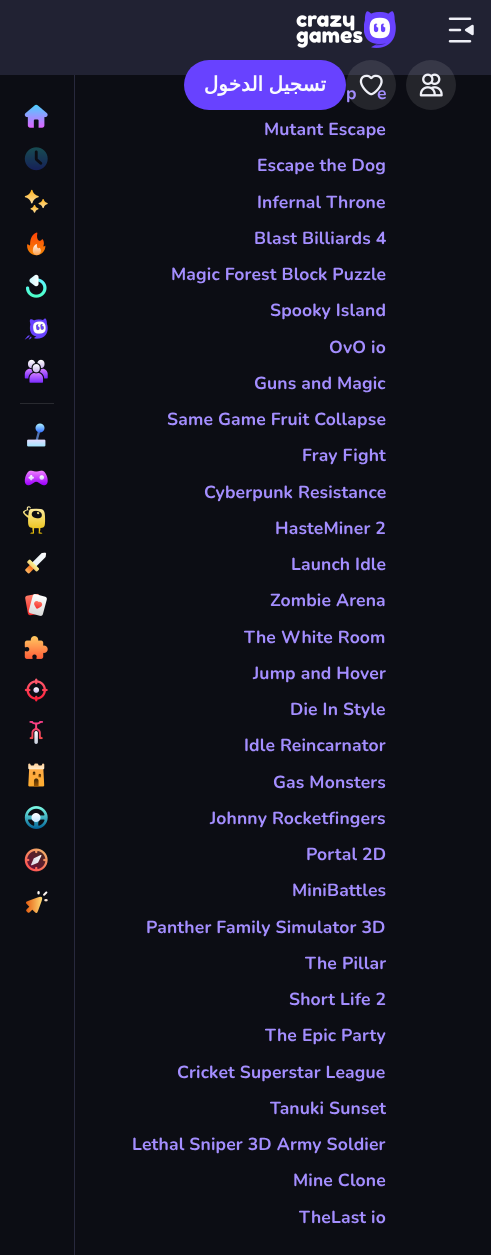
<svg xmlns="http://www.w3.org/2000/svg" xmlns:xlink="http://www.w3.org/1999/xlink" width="491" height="1255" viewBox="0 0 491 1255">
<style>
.cls-1{font:bold 20px DejaVu Sans;direction:rtl;fill:#f9faff}
.cls-2{font:bold 17.5px Nunito;letter-spacing:0.15px;fill:#a48eff}
</style>
<rect width="100%" height="100%" fill="#0c0d14"/>
<rect fill="#28293d" x="74" y="75" width="1" height="1180"/>
<image xlink:href="image0.png" x="24" y="104" width="24" height="24"/>
<image xlink:href="image1.png" x="24" y="147" width="24" height="24"/>
<image xlink:href="image2.png" x="24" y="189" width="24" height="24"/>
<image xlink:href="image3.png" x="27" y="232" width="19" height="24"/>
<image xlink:href="image4.png" x="26" y="274" width="21" height="24"/>
<image xlink:href="image5.png" x="24" y="318" width="24" height="22"/>
<image xlink:href="image6.png" x="24" y="359" width="24" height="24"/>
<rect fill="#292a30" x="20" y="403" width="34" height="1"/>
<image xlink:href="image7.png" x="27" y="423" width="19" height="24"/>
<image xlink:href="image8.png" x="24" y="470" width="24" height="16"/>
<image xlink:href="image9.png" x="23" y="506" width="23" height="28"/>
<image xlink:href="image10.png" x="25" y="552" width="22" height="22"/>
<image xlink:href="image11.png" x="25" y="593" width="22" height="23"/>
<image xlink:href="image12.png" x="24" y="636" width="24" height="23"/>
<image xlink:href="image13.png" x="24" y="678" width="24" height="24"/>
<image xlink:href="image14.png" x="29" y="721" width="15" height="23"/>
<image xlink:href="image15.png" x="28" y="763" width="17" height="24"/>
<image xlink:href="image16.png" x="24" y="806" width="24" height="23"/>
<image xlink:href="image17.png" x="24" y="848" width="24" height="24"/>
<image xlink:href="image18.png" x="26" y="891" width="22" height="22"/>
<rect fill="#212233" x="0" y="0" width="491" height="75"/>
<image xlink:href="image19.png" x="296" y="15" width="67" height="33"/>
<image xlink:href="image20.png" x="364" y="11" width="32" height="37"/>
<image xlink:href="image21.png" x="448" y="17" width="26" height="26"/>
<rect fill="#6842ff" x="184" y="60" width="162" height="50" rx="25"/>
<circle fill="#ffffff" fill-opacity="0.1" cx="371" cy="85" r="25"/>
<circle fill="#ffffff" fill-opacity="0.1" cx="431" cy="85" r="25"/>
<image xlink:href="image23.png" x="419" y="73" width="24" height="24"/>
<text class="cls-1" x="326" y="91" word-spacing="-1">تسجيل الدخول</text>
<text class="cls-2" x="346" y="99">p</text>
<text class="cls-2" x="377" y="99">e</text>
<image xlink:href="image22.png" x="359" y="74" width="24" height="22"/>
<text class="cls-2" x="264" y="135">Mutant Escape</text>
<text class="cls-2" x="257" y="171">Escape the Dog</text>
<text class="cls-2" x="257" y="208">Infernal Throne</text>
<text class="cls-2" x="254" y="244">Blast Billiards 4</text>
<text class="cls-2" x="171" y="280">Magic Forest Block Puzzle</text>
<text class="cls-2" x="270" y="316">Spooky Island</text>
<text class="cls-2" x="329" y="353">OvO io</text>
<text class="cls-2" x="254" y="389">Guns and Magic</text>
<text class="cls-2" x="167" y="425">Same Game Fruit Collapse</text>
<text class="cls-2" x="302" y="461">Fray Fight</text>
<text class="cls-2" x="204" y="498">Cyberpunk Resistance</text>
<text class="cls-2" x="275" y="534">HasteMiner 2</text>
<text class="cls-2" x="291" y="570">Launch Idle</text>
<text class="cls-2" x="270" y="606">Zombie Arena</text>
<text class="cls-2" x="244" y="643">The White Room</text>
<text class="cls-2" x="253" y="679">Jump and Hover</text>
<text class="cls-2" x="290" y="715">Die In Style</text>
<text class="cls-2" x="244" y="751">Idle Reincarnator</text>
<text class="cls-2" x="273" y="788">Gas Monsters</text>
<text class="cls-2" x="210" y="824">Johnny Rocketfingers</text>
<text class="cls-2" x="306" y="860">Portal 2D</text>
<text class="cls-2" x="292" y="896">MiniBattles</text>
<text class="cls-2" x="146" y="933">Panther Family Simulator 3D</text>
<text class="cls-2" x="305" y="969">The Pillar</text>
<text class="cls-2" x="289" y="1005">Short Life 2</text>
<text class="cls-2" x="265" y="1041">The Epic Party</text>
<text class="cls-2" x="177" y="1078">Cricket Superstar League</text>
<text class="cls-2" x="270" y="1114">Tanuki Sunset</text>
<text class="cls-2" x="132" y="1150">Lethal Sniper 3D Army Soldier</text>
<text class="cls-2" x="293" y="1186">Mine Clone</text>
<text class="cls-2" x="299" y="1223">TheLast io</text>
</svg>
